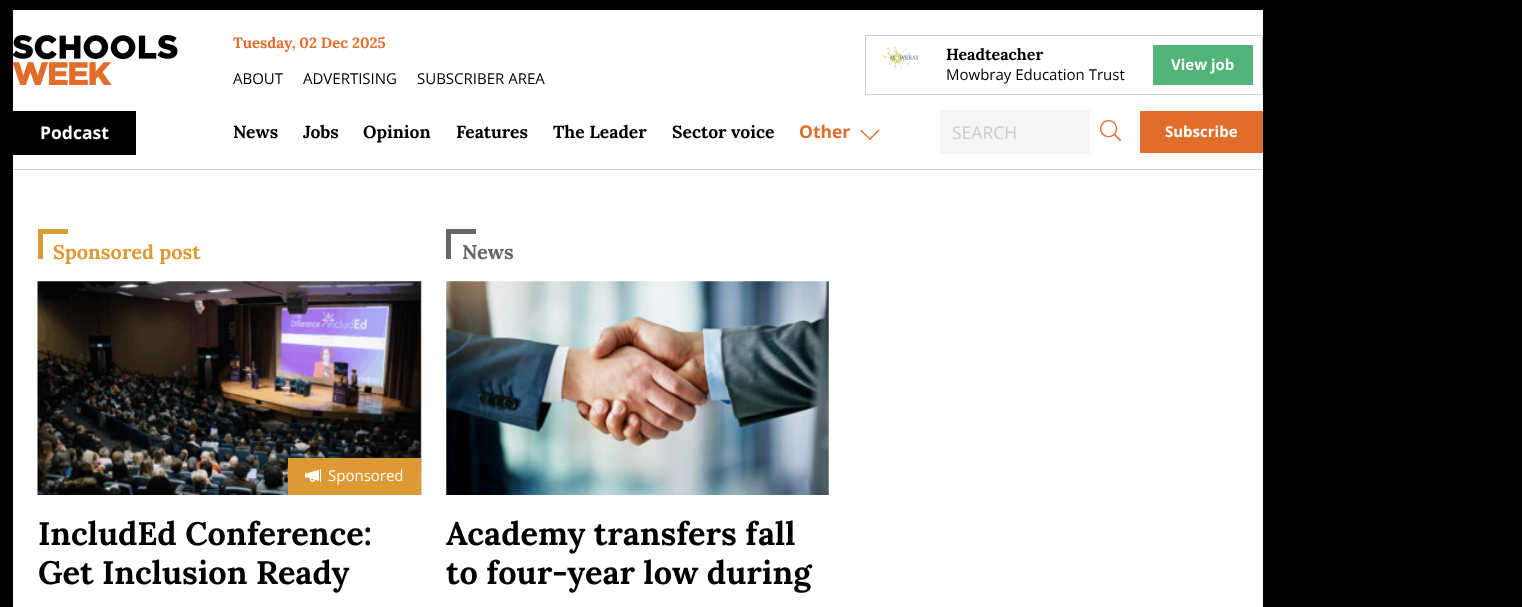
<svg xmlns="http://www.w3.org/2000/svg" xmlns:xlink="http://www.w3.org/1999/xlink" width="1522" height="607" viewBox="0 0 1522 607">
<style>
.cls-1{font:bold 15px Lora;fill:#e26d2b}
.cls-2{font:15px Open Sans;fill:#000000}
.cls-3{font:bold 16px Lora;fill:#000000}
.cls-4{font:bold 15px Open Sans;fill:#fefefe}
.cls-5{font:bold 17.5px Open Sans;fill:#fefefe}
.cls-6{font:bold 17.5px Lora;fill:#000000}
.cls-7{font:bold 17.5px Open Sans;fill:#e26d2b}
.cls-8{font:17.5px Open Sans;fill:#cccccc}
.cls-9{font:bold 20px Lora;fill:#dd9933}
.cls-10{font:15px Open Sans;fill:#fefefe}
.cls-11{font:bold 32.5px Lora;fill:#000000}
.cls-12{font:bold 20px Lora;fill:#666666}
</style>
<rect width="100%" height="100%" fill="#000000"/>
<rect fill="#ffffff" x="13" y="10" width="1250" height="597"/>
<rect fill="#cccccc" x="13" y="169" width="1250" height="1"/>
<image xlink:href="image0.png" x="13" y="35" width="165" height="50"/>
<rect fill="none" stroke="#cccccc" x="865.5" y="35.5" width="397" height="59"/>
<image xlink:href="image1.png" x="882" y="46" width="37" height="24"/>
<rect fill="#50b378" x="1153" y="45" width="100" height="40"/>
<rect fill="#000000" x="13" y="111" width="123" height="44"/>
<path fill="#e26d2b" d="M869 139L878.5 129.5L879.5 130.5L870 140Z"/>
<path fill="#e26d2b" d="M860 130.5L861 129.5L870.5 139L870 140Z"/>
<rect fill="#f5f5f5" x="940" y="110" width="150" height="44"/>
<image xlink:href="image2.png" x="1100" y="120" width="21" height="21"/>
<rect fill="#e26d2b" x="1140" y="111" width="123" height="42"/>
<rect fill="#dd9933" x="38" y="229" width="30" height="5"/>
<rect fill="#dd9933" x="38" y="229" width="5" height="30"/>
<image xlink:href="image3.png" x="37" y="281" width="385" height="214"/>
<rect fill="#dd9933" x="288" y="458" width="133" height="37"/>
<image xlink:href="image4.png" x="305" y="469" width="16" height="13"/>
<rect fill="#666666" x="446" y="229" width="30" height="5"/>
<rect fill="#666666" x="446" y="229" width="5" height="30"/>
<image xlink:href="image5.png" x="446" y="281" width="383" height="214"/>
<text class="cls-1" x="233" y="48">Tuesday, 02 Dec 2025</text>
<text class="cls-2" x="233" y="84">ABOUT</text>
<text class="cls-2" x="303" y="84">ADVERTISING</text>
<text class="cls-2" x="417" y="84">SUBSCRIBER AREA</text>
<text class="cls-3" x="946" y="60">Headteacher</text>
<text class="cls-2" x="946" y="80">Mowbray Education Trust</text>
<text class="cls-4" x="1171" y="70">View job</text>
<text class="cls-5" x="40" y="139">Podcast</text>
<text class="cls-6" x="233" y="138">News</text>
<text class="cls-6" x="303" y="138">Jobs</text>
<text class="cls-6" x="363" y="138">Opinion</text>
<text class="cls-6" x="456" y="138">Features</text>
<text class="cls-6" x="553" y="138">The Leader</text>
<text class="cls-6" x="672" y="138">Sector voice</text>
<text class="cls-7" x="799" y="138">Other</text>
<text class="cls-8" x="952" y="139">SEARCH</text>
<text class="cls-4" x="1165" y="137">Subscribe</text>
<text class="cls-9" x="53" y="259">Sponsored post</text>
<text class="cls-10" x="328" y="481">Sponsored</text>
<text class="cls-11"><tspan x="38" y="545">IncludEd Conference:</tspan><tspan x="38" y="584">Get Inclusion Ready</tspan></text>
<text class="cls-12" x="462" y="259">News</text>
<text class="cls-11"><tspan x="446" y="545">Academy transfers fall</tspan><tspan x="446" y="584">to four-year low during</tspan></text>
</svg>
